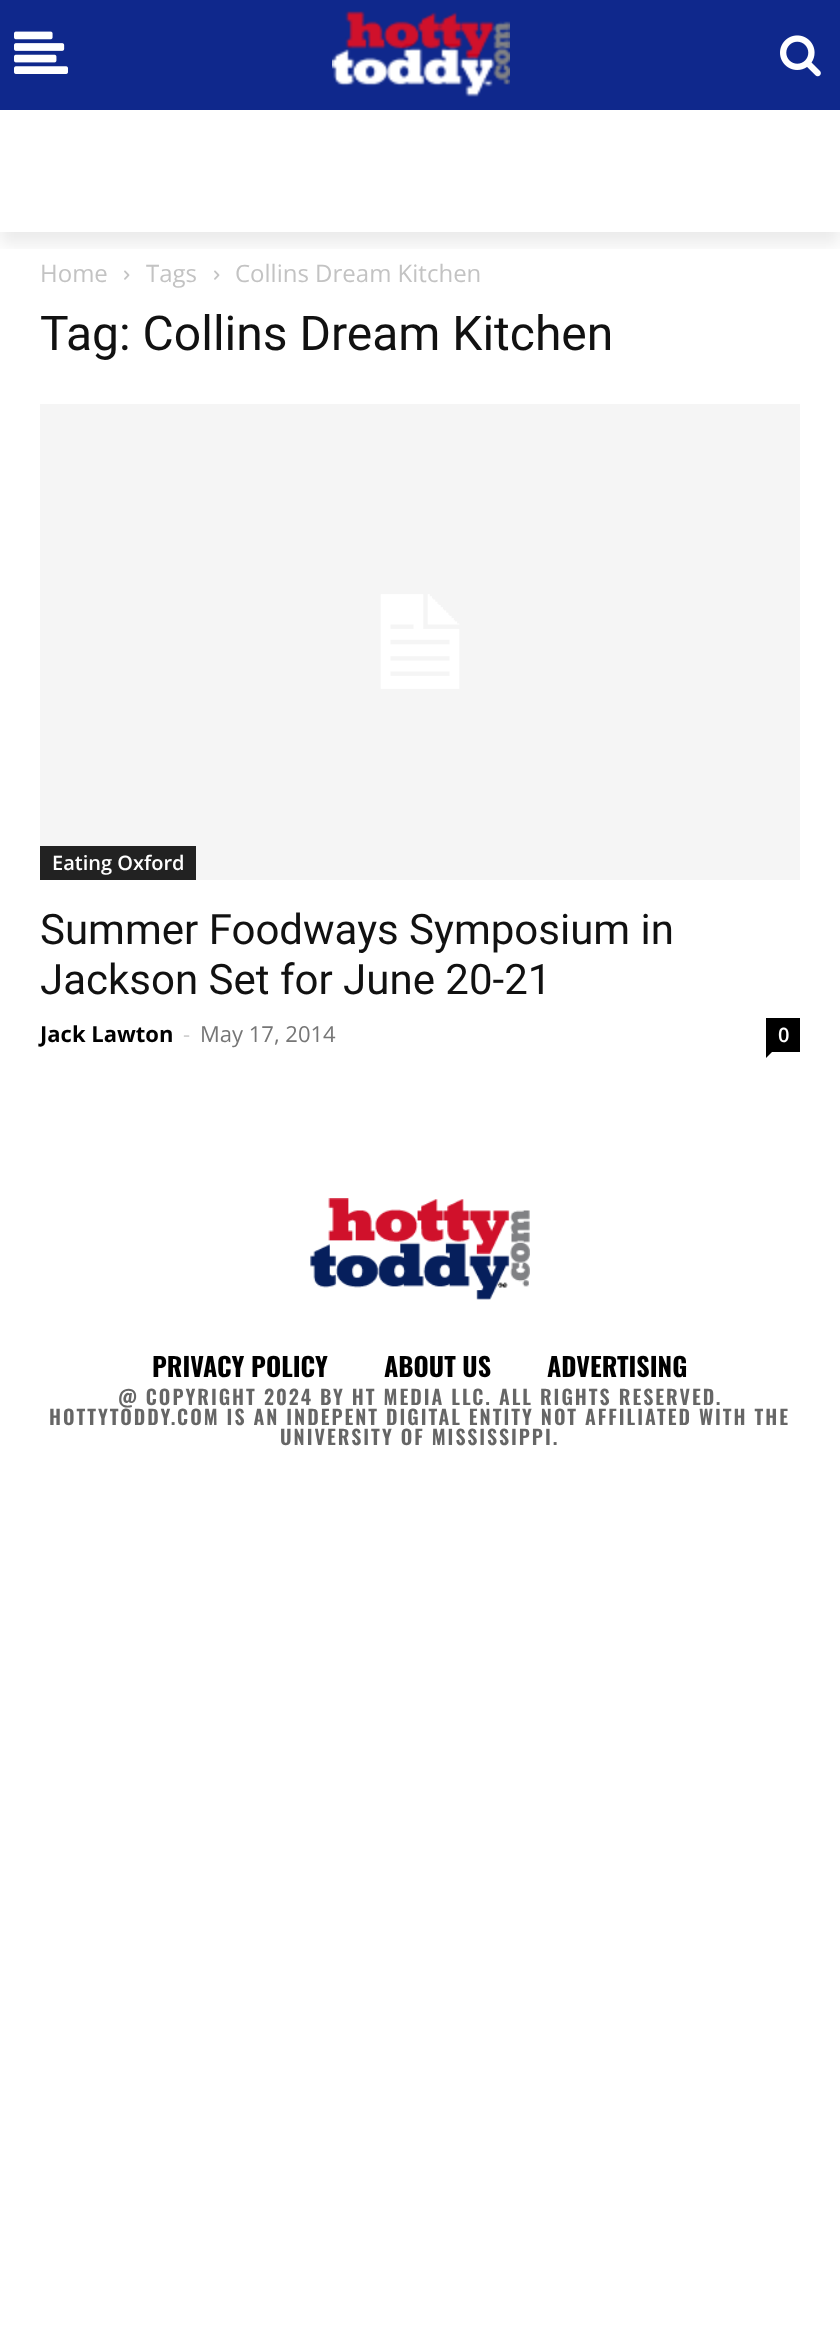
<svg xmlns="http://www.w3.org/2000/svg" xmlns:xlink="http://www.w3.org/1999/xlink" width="840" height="2335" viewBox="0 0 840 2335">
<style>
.cls-1{font:24px Open Sans;fill:#c3c3c3}
.cls-2{font:48px Roboto;fill:#111111}
.cls-3{font:600 20px Open Sans;fill:#ffffff}
.cls-4{font:42px Roboto;fill:#111111}
.cls-5{font:bold 22px Open Sans;fill:#000000}
.cls-6{font:22px Open Sans;fill:#cccccc}
.cls-7{font:22px Open Sans;fill:#767676}
.cls-8{font:bold 26px Oswald;fill:#000000}
.cls-9{font:600 20px Oswald;letter-spacing:2px;fill:#666666}
</style>
<defs>
<clipPath id="clip1"><rect x="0" y="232" width="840" height="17"/></clipPath>
</defs>
<rect width="100%" height="100%" fill="#ffffff"/>
<rect fill="#0f288c" x="0" y="0" width="840" height="110"/>
<image xlink:href="image0.png" x="14" y="31" width="54" height="43"/>
<image xlink:href="image1.png" x="332" y="11" width="178" height="86"/>
<image xlink:href="image2.png" x="780" y="35" width="41" height="42"/>
<g clip-path="url(#clip1)">
<rect fill="#000000" fill-opacity="0.08" filter="blur(8px)" x="0" y="12" width="840" height="232"/>
</g>
<image xlink:href="image3.png" x="124" y="270" width="6" height="10"/>
<image xlink:href="image3.png" x="214" y="270" width="6" height="10"/>
<image xlink:href="image4.png" x="40" y="404" width="760" height="476"/>
<rect fill="#222222" x="40" y="846" width="156" height="34"/>
<rect fill="#000000" x="766" y="1018" width="34" height="34"/>
<path fill="#000000" d="M766 1052H772L766 1058Z"/>
<image xlink:href="image5.png" x="310" y="1198" width="220" height="102"/>
<text class="cls-1" x="40" y="282">Home</text>
<text class="cls-1" x="146" y="282">Tags</text>
<text class="cls-1" x="235" y="282">Collins Dream Kitchen</text>
<text class="cls-2" x="40" y="350">Tag: Collins Dream Kitchen</text>
<text class="cls-3" x="52" y="870">Eating Oxford</text>
<text class="cls-4"><tspan x="40" y="944">Summer Foodways Symposium in</tspan><tspan x="40" y="994">Jackson Set for June 20-21</tspan></text>
<text class="cls-5" x="40" y="1042">Jack Lawton</text>
<text class="cls-6" x="183" y="1042">-</text>
<text class="cls-7" x="200" y="1042">May 17, 2014</text>
<text class="cls-3" x="778" y="1042">0</text>
<text class="cls-8" x="152" y="1377">PRIVACY POLICY</text>
<text class="cls-8" x="384" y="1377">ABOUT US</text>
<text class="cls-8" x="547" y="1377">ADVERTISING</text>
<text class="cls-9" x="118" y="1405">@ COPYRIGHT 2024 BY HT MEDIA LLC. ALL RIGHTS RESERVED.</text>
<text class="cls-9" x="49" y="1425">HOTTYTODDY.COM IS AN INDEPENT DIGITAL ENTITY NOT AFFILIATED WITH THE</text>
<text class="cls-9" x="280" y="1445">UNIVERSITY OF MISSISSIPPI.</text>
</svg>
